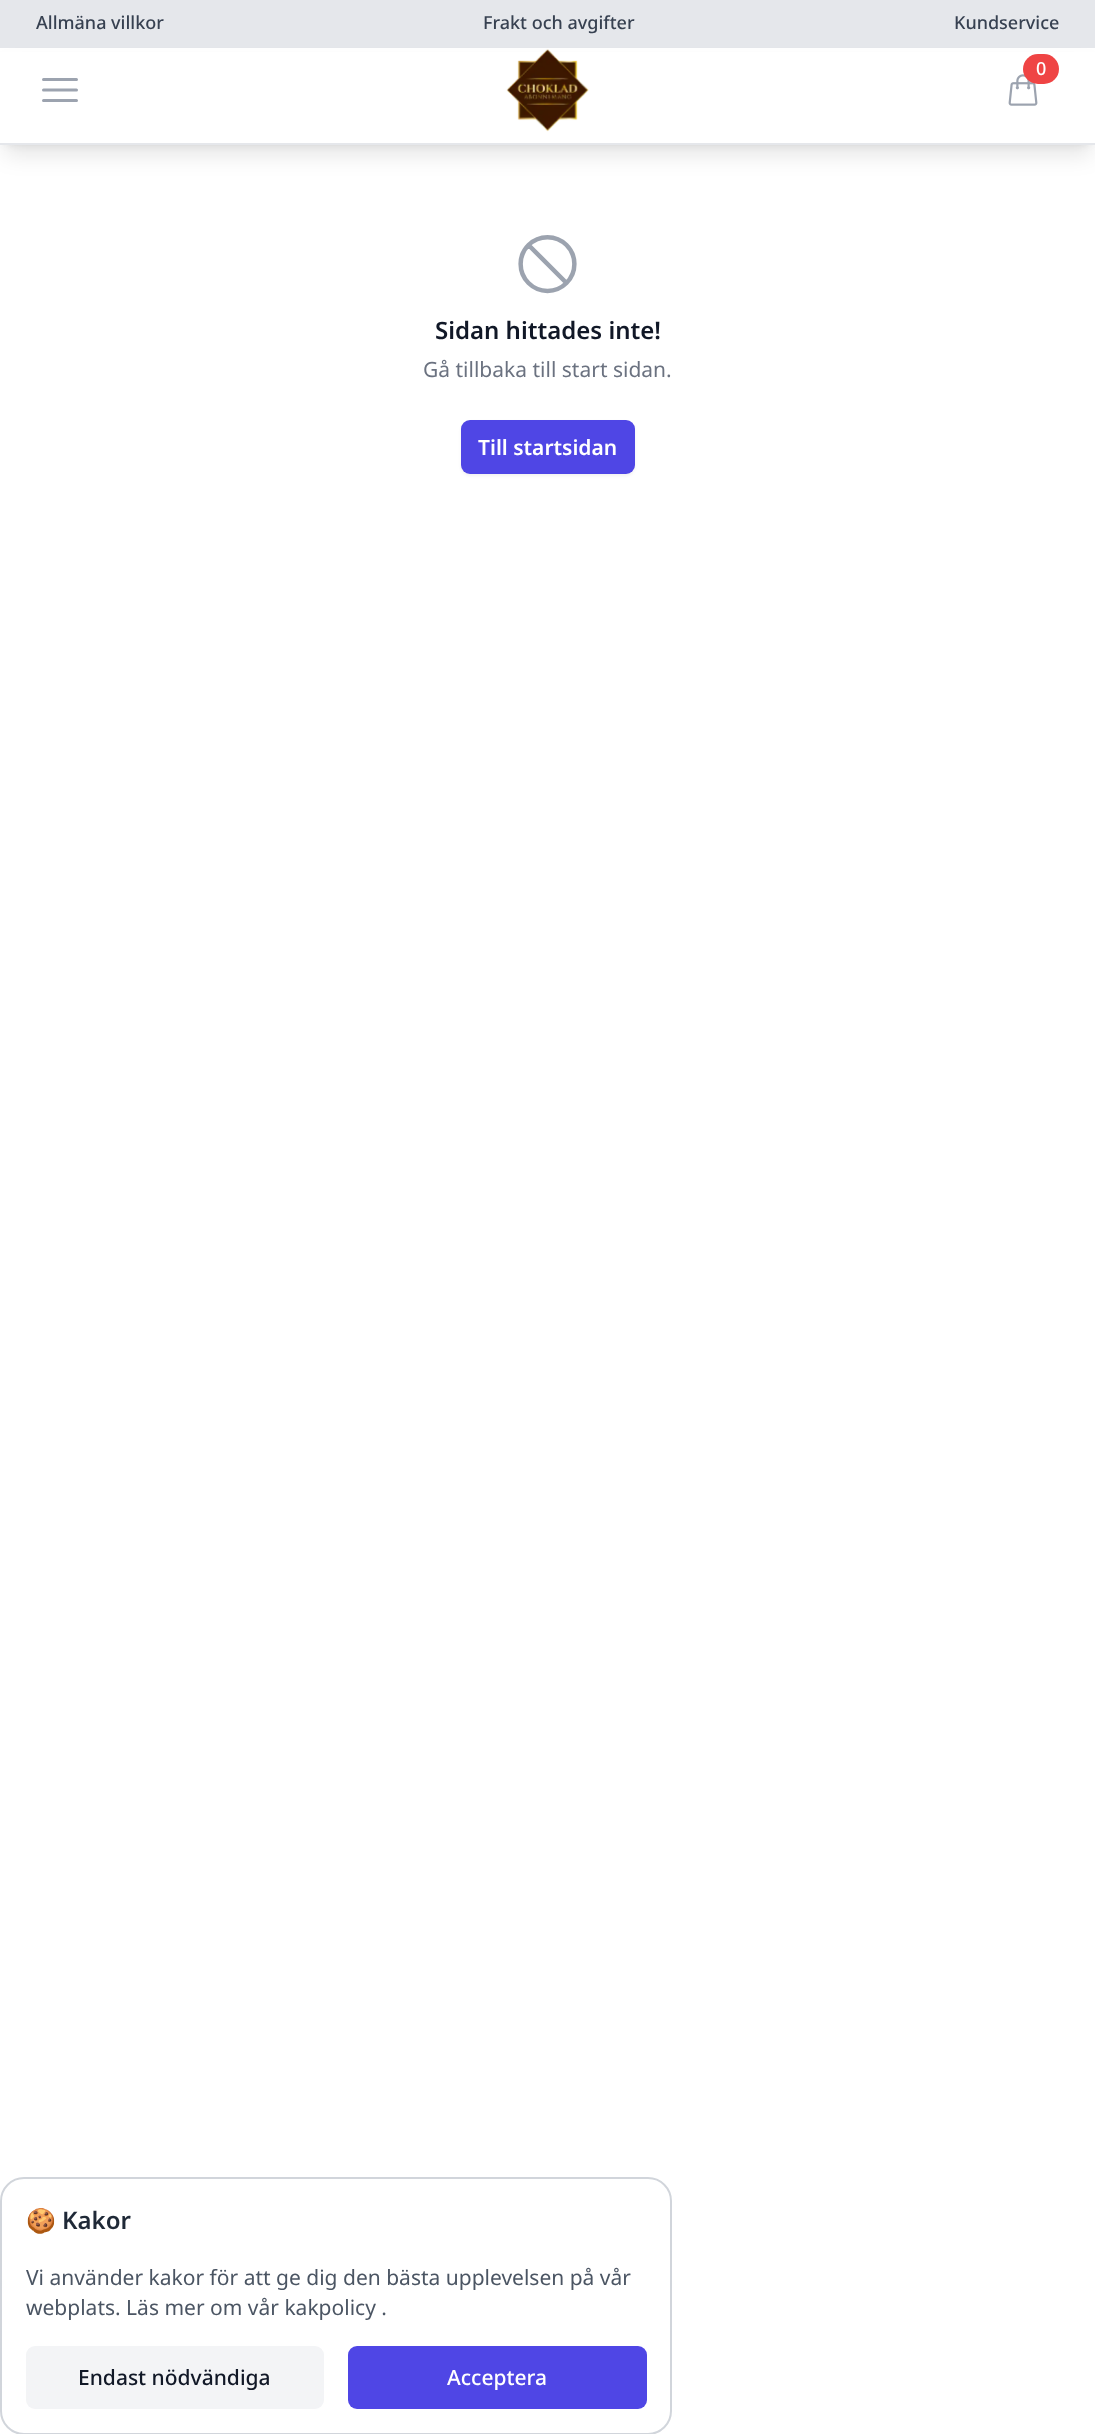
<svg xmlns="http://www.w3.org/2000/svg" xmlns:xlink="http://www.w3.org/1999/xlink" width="1095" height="2434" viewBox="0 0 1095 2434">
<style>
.cls-1{font:500 18px Noto Sans;fill:#374151}
.cls-2{font:500 18px Noto Sans;fill:#ffffff}
.cls-3{font:600 24px Noto Sans;fill:#111827}
.cls-4{font:21px Noto Sans;fill:#6b7280}
.cls-5{font:600 21px Noto Sans;fill:#ffffff}
.cls-6{font:24px Noto Color Emoji;fill:#1f2937}
.cls-7{font:600 24px Noto Sans;fill:#1f2937}
.cls-8{font:21px Noto Sans;fill:#4b5563}
.cls-9{font:500 21px Noto Sans;fill:#111827}
.cls-10{font:500 21px Noto Sans;fill:#ffffff}
</style>
<rect width="100%" height="100%" fill="#ffffff"/>
<rect fill="#e5e7eb" x="0" y="0" width="1095" height="48"/>
<rect fill="#000000" fill-opacity="0.1" filter="blur(4.5px)" x="6" y="60" width="1083" height="84"/>
<rect fill="#000000" fill-opacity="0.1" filter="blur(11px)" x="5" y="68" width="1086" height="87"/>
<rect fill="#ffffff" x="0" y="52" width="1095" height="91"/>
<rect fill="#e5e7eb" x="0" y="143" width="1095" height="2"/>
<image xlink:href="image0.png" x="506" y="49" width="83" height="83"/>
<image xlink:href="image1.png" x="1008" y="74" width="30" height="32"/>
<rect fill="#ef4444" x="1023" y="54" width="36" height="30" rx="15"/>
<path fill="none" stroke="#9ca3af" stroke-width="3" stroke-linecap="round" stroke-linejoin="round" d="M43.5 79.5H76.5M43.5 90H76.5M43.5 100.5H76.5"/>
<path fill="none" stroke="#9ca3af" stroke-width="4.5" stroke-linecap="round" stroke-linejoin="round" d="M566.5 283C577 272.5 577 255.5 566.5 245C556 234.5 539 234.5 528.5 245M566.5 283C556 293.5 539 293.5 528.5 283C518 272.5 518 255.5 528.5 245M566.5 283L528.5 245"/>
<rect fill="#000000" fill-opacity="0.05" filter="blur(1.5px)" x="461" y="422" width="174" height="54" rx="9"/>
<rect fill="#4f46e5" x="461" y="420" width="174" height="54" rx="9"/>
<rect fill="none" stroke="#d1d5db" stroke-width="2" x="1" y="2178" width="670" height="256" rx="23"/>
<rect fill="#f3f4f6" x="26" y="2346" width="298" height="63" rx="9"/>
<rect fill="#4f46e5" x="348" y="2346" width="299" height="63" rx="9"/>
<text class="cls-1" x="36" y="29">Allmäna villkor</text>
<text class="cls-1" x="483" y="29">Frakt och avgifter</text>
<text class="cls-1" x="954" y="29">Kundservice</text>
<text class="cls-2" x="1036" y="75">0</text>
<text class="cls-3" x="435" y="339">Sidan hittades inte!</text>
<text class="cls-4" x="423" y="377">Gå tillbaka till start sidan.</text>
<text class="cls-5" x="478" y="455">Till startsidan</text>
<text class="cls-6" x="26" y="2229">🍪</text>
<text class="cls-7" x="62" y="2229">Kakor</text>
<text class="cls-8"><tspan x="26" y="2285">Vi använder kakor för att ge dig den bästa upplevelsen på vår</tspan><tspan x="26" y="2315">webplats. Läs mer om vår kakpolicy .</tspan></text>
<text class="cls-9" x="78" y="2385">Endast nödvändiga</text>
<text class="cls-10" x="447" y="2385">Acceptera</text>
</svg>
